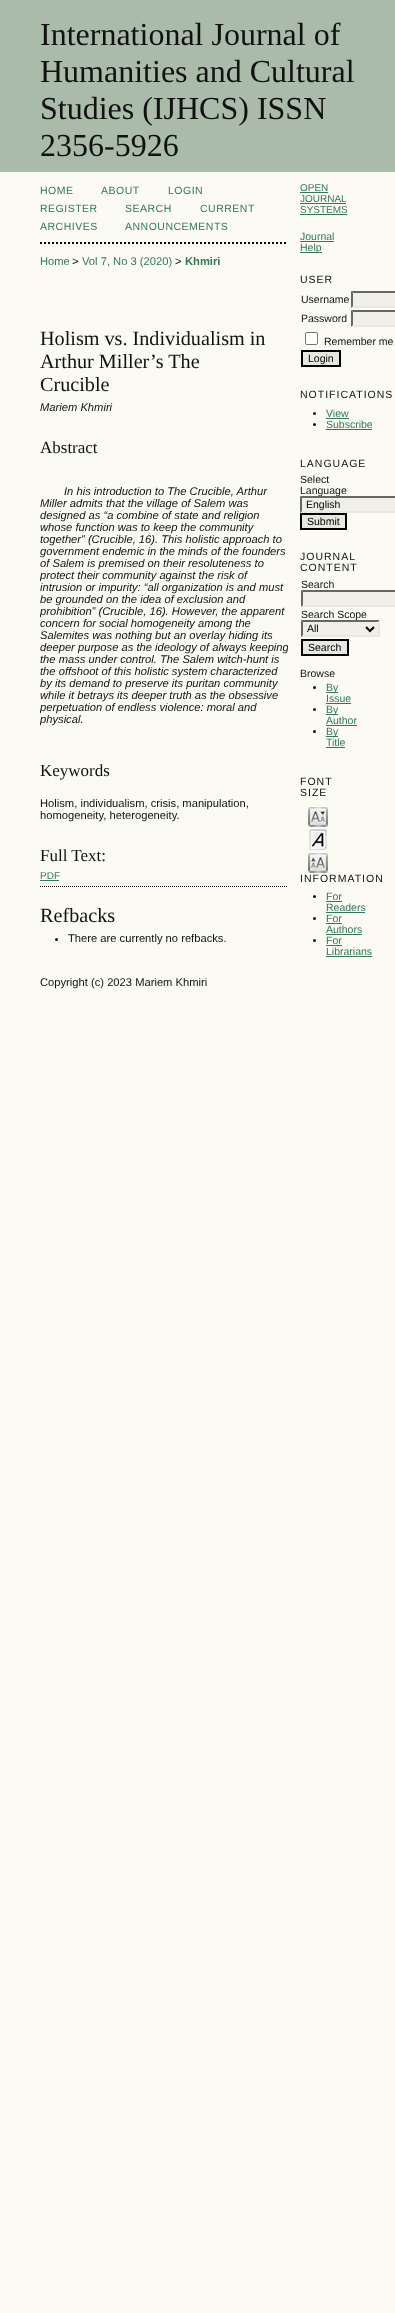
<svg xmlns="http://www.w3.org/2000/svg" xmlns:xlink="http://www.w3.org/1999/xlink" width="395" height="2313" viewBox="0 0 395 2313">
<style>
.cls-1{font:32px Liberation Serif;fill:#111111}
.cls-2{font:10.5px Liberation Sans;letter-spacing:0.5px;fill:#337755}
.cls-3{font:11.2px Liberation Sans;fill:#337755}
.cls-4{font:11.2px Liberation Sans;fill:#111111}
.cls-5{font:bold 11.2px Liberation Sans;fill:#337755}
.cls-6{font:20.2px Liberation Serif;fill:#111111}
.cls-7{font:italic 11.2px Liberation Sans;fill:#111111}
.cls-8{font:17px Liberation Serif;fill:#111111}
.cls-9{font:10px Liberation Sans;fill:#337755}
.cls-10{font:10.5px Liberation Sans;fill:#337755}
.cls-11{font:10.5px Liberation Sans;letter-spacing:1px;fill:#111111}
.cls-12{font:10.5px Liberation Sans;fill:#111111}
.cls-13{font:10.5px Liberation Sans;fill:#000000}
</style>
<defs>
<clipPath id="clip1"><rect x="40" y="172" width="248" height="848"/></clipPath>
</defs>
<rect width="100%" height="100%" fill="#fbfbf3"/>
<rect fill="#aabbaa" x="0" y="0" width="395" height="172"/>
<path fill="none" stroke="#000000" stroke-width="2" stroke-dasharray="2 2" d="M40 243H288"/>
<rect fill="#337755" x="40" y="880" width="19" height="1"/>
<path fill="none" stroke="#000000" stroke-dasharray="1 1" d="M40 886.5H288"/>
<circle fill="#111111" cx="56.5" cy="939.5" r="1.5"/>
<rect fill="#337755" x="300" y="192" width="28" height="1"/>
<rect fill="#337755" x="300" y="203" width="46" height="1"/>
<rect fill="#337755" x="300" y="214" width="47" height="1"/>
<rect fill="#337755" x="300" y="241" width="34" height="1"/>
<rect fill="#337755" x="300" y="252" width="22" height="1"/>
<rect fill="#f0f0e8" x="351" y="291" width="44" height="17"/>
<path fill="#666666" d="M351 291H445L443 293H353Z"/>
<path fill="#e8e8e1" d="M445 308H351L353 306H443Z"/>
<path fill="#666666" d="M351 308V291L353 293V306Z"/>
<rect fill="#f0f0e8" x="351" y="310" width="44" height="17"/>
<path fill="#666666" d="M351 310H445L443 312H353Z"/>
<path fill="#e8e8e1" d="M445 327H351L353 325H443Z"/>
<path fill="#666666" d="M351 327V310L353 312V325Z"/>
<rect fill="#ffffff" stroke="#767676" x="305.5" y="332.5" width="12" height="12" rx="1.5"/>
<rect fill="#e8e8e1" stroke="#000000" stroke-width="2" x="302" y="351" width="38" height="15"/>
<circle fill="#111111" cx="314.5" cy="413.5" r="1.5"/>
<rect fill="#337755" x="326" y="418" width="23" height="1"/>
<circle fill="#111111" cx="314.5" cy="424.5" r="1.5"/>
<rect fill="#337755" x="326" y="429" width="46" height="1"/>
<rect fill="#e8e8e1" stroke="#000000" stroke-width="2" x="301" y="514" width="45" height="15"/>
<rect fill="#f0f0e8" x="301" y="590" width="94" height="17"/>
<path fill="#666666" d="M301 590H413L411 592H303Z"/>
<path fill="#e8e8e1" d="M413 607H301L303 605H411Z"/>
<path fill="#666666" d="M301 607V590L303 592V605Z"/>
<rect fill="#e8e8e1" stroke="#000000" stroke-width="2" x="302" y="640" width="46" height="15"/>
<circle fill="#111111" cx="314.5" cy="687.5" r="1.5"/>
<rect fill="#337755" x="326" y="692" width="12" height="1"/>
<rect fill="#337755" x="326" y="703" width="25" height="1"/>
<circle fill="#111111" cx="314.5" cy="709.5" r="1.5"/>
<rect fill="#337755" x="326" y="714" width="12" height="1"/>
<rect fill="#337755" x="326" y="725" width="31" height="1"/>
<circle fill="#111111" cx="314.5" cy="731.5" r="1.5"/>
<rect fill="#337755" x="326" y="736" width="12" height="1"/>
<rect fill="#337755" x="326" y="747" width="19" height="1"/>
<image xlink:href="image0.png" x="308" y="807" width="20" height="20"/>
<image xlink:href="image1.png" x="309" y="829" width="18" height="21"/>
<image xlink:href="image2.png" x="308" y="853" width="20" height="20"/>
<circle fill="#111111" cx="314.5" cy="896.5" r="1.5"/>
<rect fill="#337755" x="326" y="901" width="16" height="1"/>
<rect fill="#337755" x="326" y="912" width="39" height="1"/>
<circle fill="#111111" cx="314.5" cy="918.5" r="1.5"/>
<rect fill="#337755" x="326" y="923" width="16" height="1"/>
<rect fill="#337755" x="326" y="934" width="36" height="1"/>
<circle fill="#111111" cx="314.5" cy="940.5" r="1.5"/>
<rect fill="#337755" x="326" y="945" width="16" height="1"/>
<rect fill="#337755" x="326" y="956" width="46" height="1"/>
<text class="cls-1"><tspan x="40" y="45">International Journal of</tspan><tspan x="40" y="82">Humanities and Cultural</tspan><tspan x="40" y="119">Studies (IJHCS) ISSN</tspan><tspan x="40" y="156">2356-5926</tspan></text>
<text class="cls-2" x="40" y="194">HOME</text>
<text class="cls-2" x="101" y="194">ABOUT</text>
<text class="cls-2" x="168" y="194">LOGIN</text>
<text class="cls-2" x="40" y="212">REGISTER</text>
<text class="cls-2" x="125" y="212">SEARCH</text>
<text class="cls-2" x="200" y="212">CURRENT</text>
<text class="cls-2" x="40" y="230">ARCHIVES</text>
<text class="cls-2" x="125" y="230">ANNOUNCEMENTS</text>
<text class="cls-3" x="40" y="265">Home</text>
<text class="cls-4" x="72" y="265">&gt;</text>
<text class="cls-3" x="82" y="265">Vol 7, No 3 (2020)</text>
<text class="cls-4" x="175" y="265">&gt;</text>
<text class="cls-5" x="185" y="265">Khmiri</text>
<text class="cls-6"><tspan x="40" y="345">Holism vs. Individualism in</tspan><tspan x="40" y="368">Arthur Miller’s The</tspan><tspan x="40" y="391">Crucible</tspan></text>
<text class="cls-7" x="40" y="411">Mariem Khmiri</text>
<text class="cls-8" x="40" y="453">Abstract</text>
<text class="cls-7" x="64" y="495">In his introduction to The Crucible, Arthur</text>
<text class="cls-7"><tspan x="40" y="507">Miller admits that the village of Salem was</tspan><tspan x="40" y="519">designed as “a combine of state and religion</tspan><tspan x="40" y="531">whose function was to keep the community</tspan><tspan x="40" y="543">together” (Crucible, 16). This holistic approach to</tspan><tspan x="40" y="555">government endemic in the minds of the founders</tspan><tspan x="40" y="567">of Salem is premised on their resoluteness to</tspan></text>
<g clip-path="url(#clip1)">
<text class="cls-7" x="40" y="579">protect their community against the risk of</text>
</g>
<text class="cls-7"><tspan x="40" y="591">intrusion or impurity: “all organization is and must</tspan><tspan x="40" y="603">be grounded on the idea of exclusion and</tspan></text>
<g clip-path="url(#clip1)">
<text class="cls-7" x="40" y="615">prohibition” (Crucible, 16). However, the apparent</text>
</g>
<text class="cls-7"><tspan x="40" y="627">concern for social homogeneity among the</tspan><tspan x="40" y="639">Salemites was nothing but an overlay hiding its</tspan></text>
<g clip-path="url(#clip1)">
<text class="cls-7" x="40" y="651">deeper purpose as the ideology of always keeping</text>
</g>
<text class="cls-7"><tspan x="40" y="663">the mass under control. The Salem witch-hunt is</tspan><tspan x="40" y="675">the offshoot of this holistic system characterized</tspan><tspan x="40" y="687">by its demand to preserve its puritan community</tspan><tspan x="40" y="699">while it betrays its deeper truth as the obsessive</tspan></text>
<g clip-path="url(#clip1)">
<text class="cls-7"><tspan x="40" y="711">perpetuation of endless violence: moral and</tspan><tspan x="40" y="723">physical</tspan></text>
</g>
<text class="cls-4" x="80" y="723">.</text>
<text class="cls-8" x="40" y="776">Keywords</text>
<text class="cls-4"><tspan x="40" y="807">Holism, individualism, crisis, manipulation,</tspan><tspan x="40" y="819">homogeneity, heterogeneity.</tspan></text>
<text class="cls-8" x="40" y="861">Full Text:</text>
<text class="cls-9" x="40" y="879">PDF</text>
<text class="cls-6" x="40" y="922">Refbacks</text>
<text class="cls-4" x="68" y="942">There are currently no refbacks.</text>
<text class="cls-4" x="40" y="986">Copyright (c) 2023 Mariem Khmiri</text>
<text class="cls-9"><tspan x="300" y="191">OPEN</tspan><tspan x="300" y="202">JOURNAL</tspan><tspan x="300" y="213">SYSTEMS</tspan></text>
<text class="cls-10"><tspan x="300" y="240">Journal</tspan><tspan x="300" y="251">Help</tspan></text>
<text class="cls-11" x="300" y="283">USER</text>
<text class="cls-12"><tspan x="301" y="303">Username</tspan><tspan x="301" y="322">Password</tspan></text>
<text class="cls-12" x="324" y="345">Remember me</text>
<text class="cls-13" x="308" y="362">Login</text>
<text class="cls-11" x="300" y="398">NOTIFICATIONS</text>
<text class="cls-10"><tspan x="326" y="417">View</tspan><tspan x="326" y="428">Subscribe</tspan></text>
<text class="cls-11" x="300" y="467">LANGUAGE</text>
<text class="cls-12"><tspan x="300" y="483">Select</tspan><tspan x="300" y="494">Language</tspan></text>
<rect fill="#f0f0e8" x="300" y="496" width="95" height="17"/>
<path fill="#666666" d="M300 496H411L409 498H302Z"/>
<path fill="#e8e8e1" d="M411 513H300L302 511H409Z"/>
<path fill="#666666" d="M300 513V496L302 498V511Z"/>
<text class="cls-13" x="306" y="508">English</text>
<text class="cls-13" x="307" y="525">Submit</text>
<text class="cls-11"><tspan x="300" y="560">JOURNAL</tspan><tspan x="300" y="571">CONTENT</tspan></text>
<text class="cls-12" x="301" y="588">Search</text>
<text class="cls-12" x="301" y="618">Search Scope</text>
<rect fill="#f0f0e8" x="301" y="620" width="79" height="17"/>
<path fill="#666666" d="M301 620H380L378 622H303Z"/>
<path fill="#e8e8e1" d="M380 620V637L378 635V622Z"/>
<path fill="#e8e8e1" d="M380 637H301L303 635H378Z"/>
<path fill="#666666" d="M301 637V620L303 622V635Z"/>
<path fill="none" stroke="#000000" stroke-width="2" d="M366 627L370 631L374 627"/>
<text class="cls-13" x="307" y="632">All</text>
<text class="cls-13" x="308" y="651">Search</text>
<text class="cls-12" x="300" y="677">Browse</text>
<text class="cls-10"><tspan x="326" y="691">By</tspan><tspan x="326" y="702">Issue</tspan><tspan x="326" y="713">By</tspan><tspan x="326" y="724">Author</tspan><tspan x="326" y="735">By</tspan><tspan x="326" y="746">Title</tspan></text>
<text class="cls-11"><tspan x="300" y="785">FONT</tspan><tspan x="300" y="796">SIZE</tspan></text>
<text class="cls-11" x="300" y="882">INFORMATION</text>
<text class="cls-10"><tspan x="326" y="900">For</tspan><tspan x="326" y="911">Readers</tspan><tspan x="326" y="922">For</tspan><tspan x="326" y="933">Authors</tspan><tspan x="326" y="944">For</tspan><tspan x="326" y="955">Librarians</tspan></text>
</svg>
